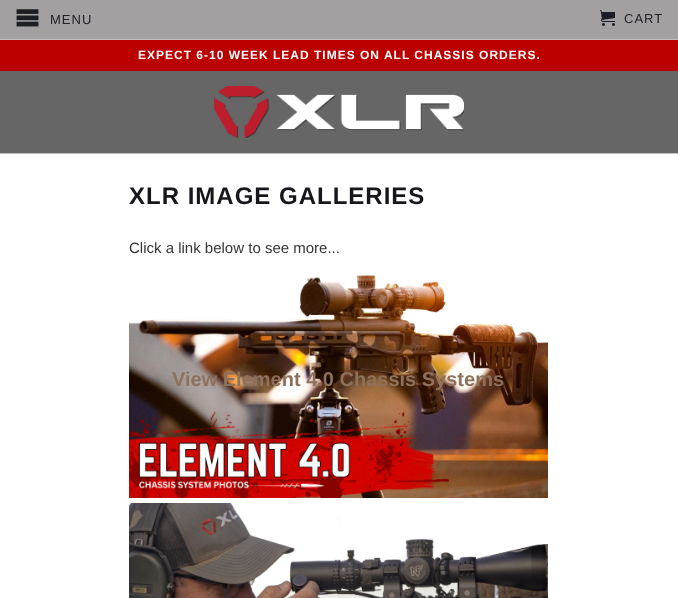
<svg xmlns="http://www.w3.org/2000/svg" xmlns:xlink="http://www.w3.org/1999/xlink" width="678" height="598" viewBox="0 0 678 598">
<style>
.cls-1{font:13px Liberation Sans;letter-spacing:1px;fill:#222228}
.cls-2{font:bold 12px Liberation Sans;letter-spacing:1px;fill:#ffffff}
.cls-3{font:bold 24px Liberation Sans;letter-spacing:1px;fill:#16161d}
.cls-4{font:15px Liberation Sans;fill:#363636}
.cls-5{font:bold 20px Liberation Sans;fill:#8d715c}
</style>
<rect width="100%" height="100%" fill="#ffffff"/>
<rect fill="#a2a0a0" x="0" y="0" width="678" height="39"/>
<rect fill="#bebebe" x="0" y="39" width="678" height="1"/>
<image xlink:href="image0.png" x="16" y="9" width="23" height="18"/>
<image xlink:href="image1.png" x="600" y="10" width="15" height="16"/>
<rect fill="#666666" x="0" y="71" width="678" height="82"/>
<rect fill="#bbbbbb" x="0" y="153" width="678" height="1"/>
<rect fill="#bb0000" x="0" y="40" width="678" height="31"/>
<image xlink:href="image2.png" x="214" y="86" width="250" height="52"/>
<image xlink:href="image3.png" x="129" y="275" width="419" height="223"/>
<image xlink:href="image4.png" x="129" y="503" width="419" height="95"/>
<text class="cls-1" x="50" y="24">MENU</text>
<text class="cls-1" x="624" y="23">CART</text>
<text class="cls-2" x="138" y="59">EXPECT 6-10 WEEK LEAD TIMES ON ALL CHASSIS ORDERS.</text>
<text class="cls-3" x="129" y="204">XLR IMAGE GALLERIES</text>
<text class="cls-4" x="129" y="253">Click a link below to see more...</text>
<text class="cls-5" x="172" y="386">View Element 4.0 Chassis Systems</text>
</svg>
